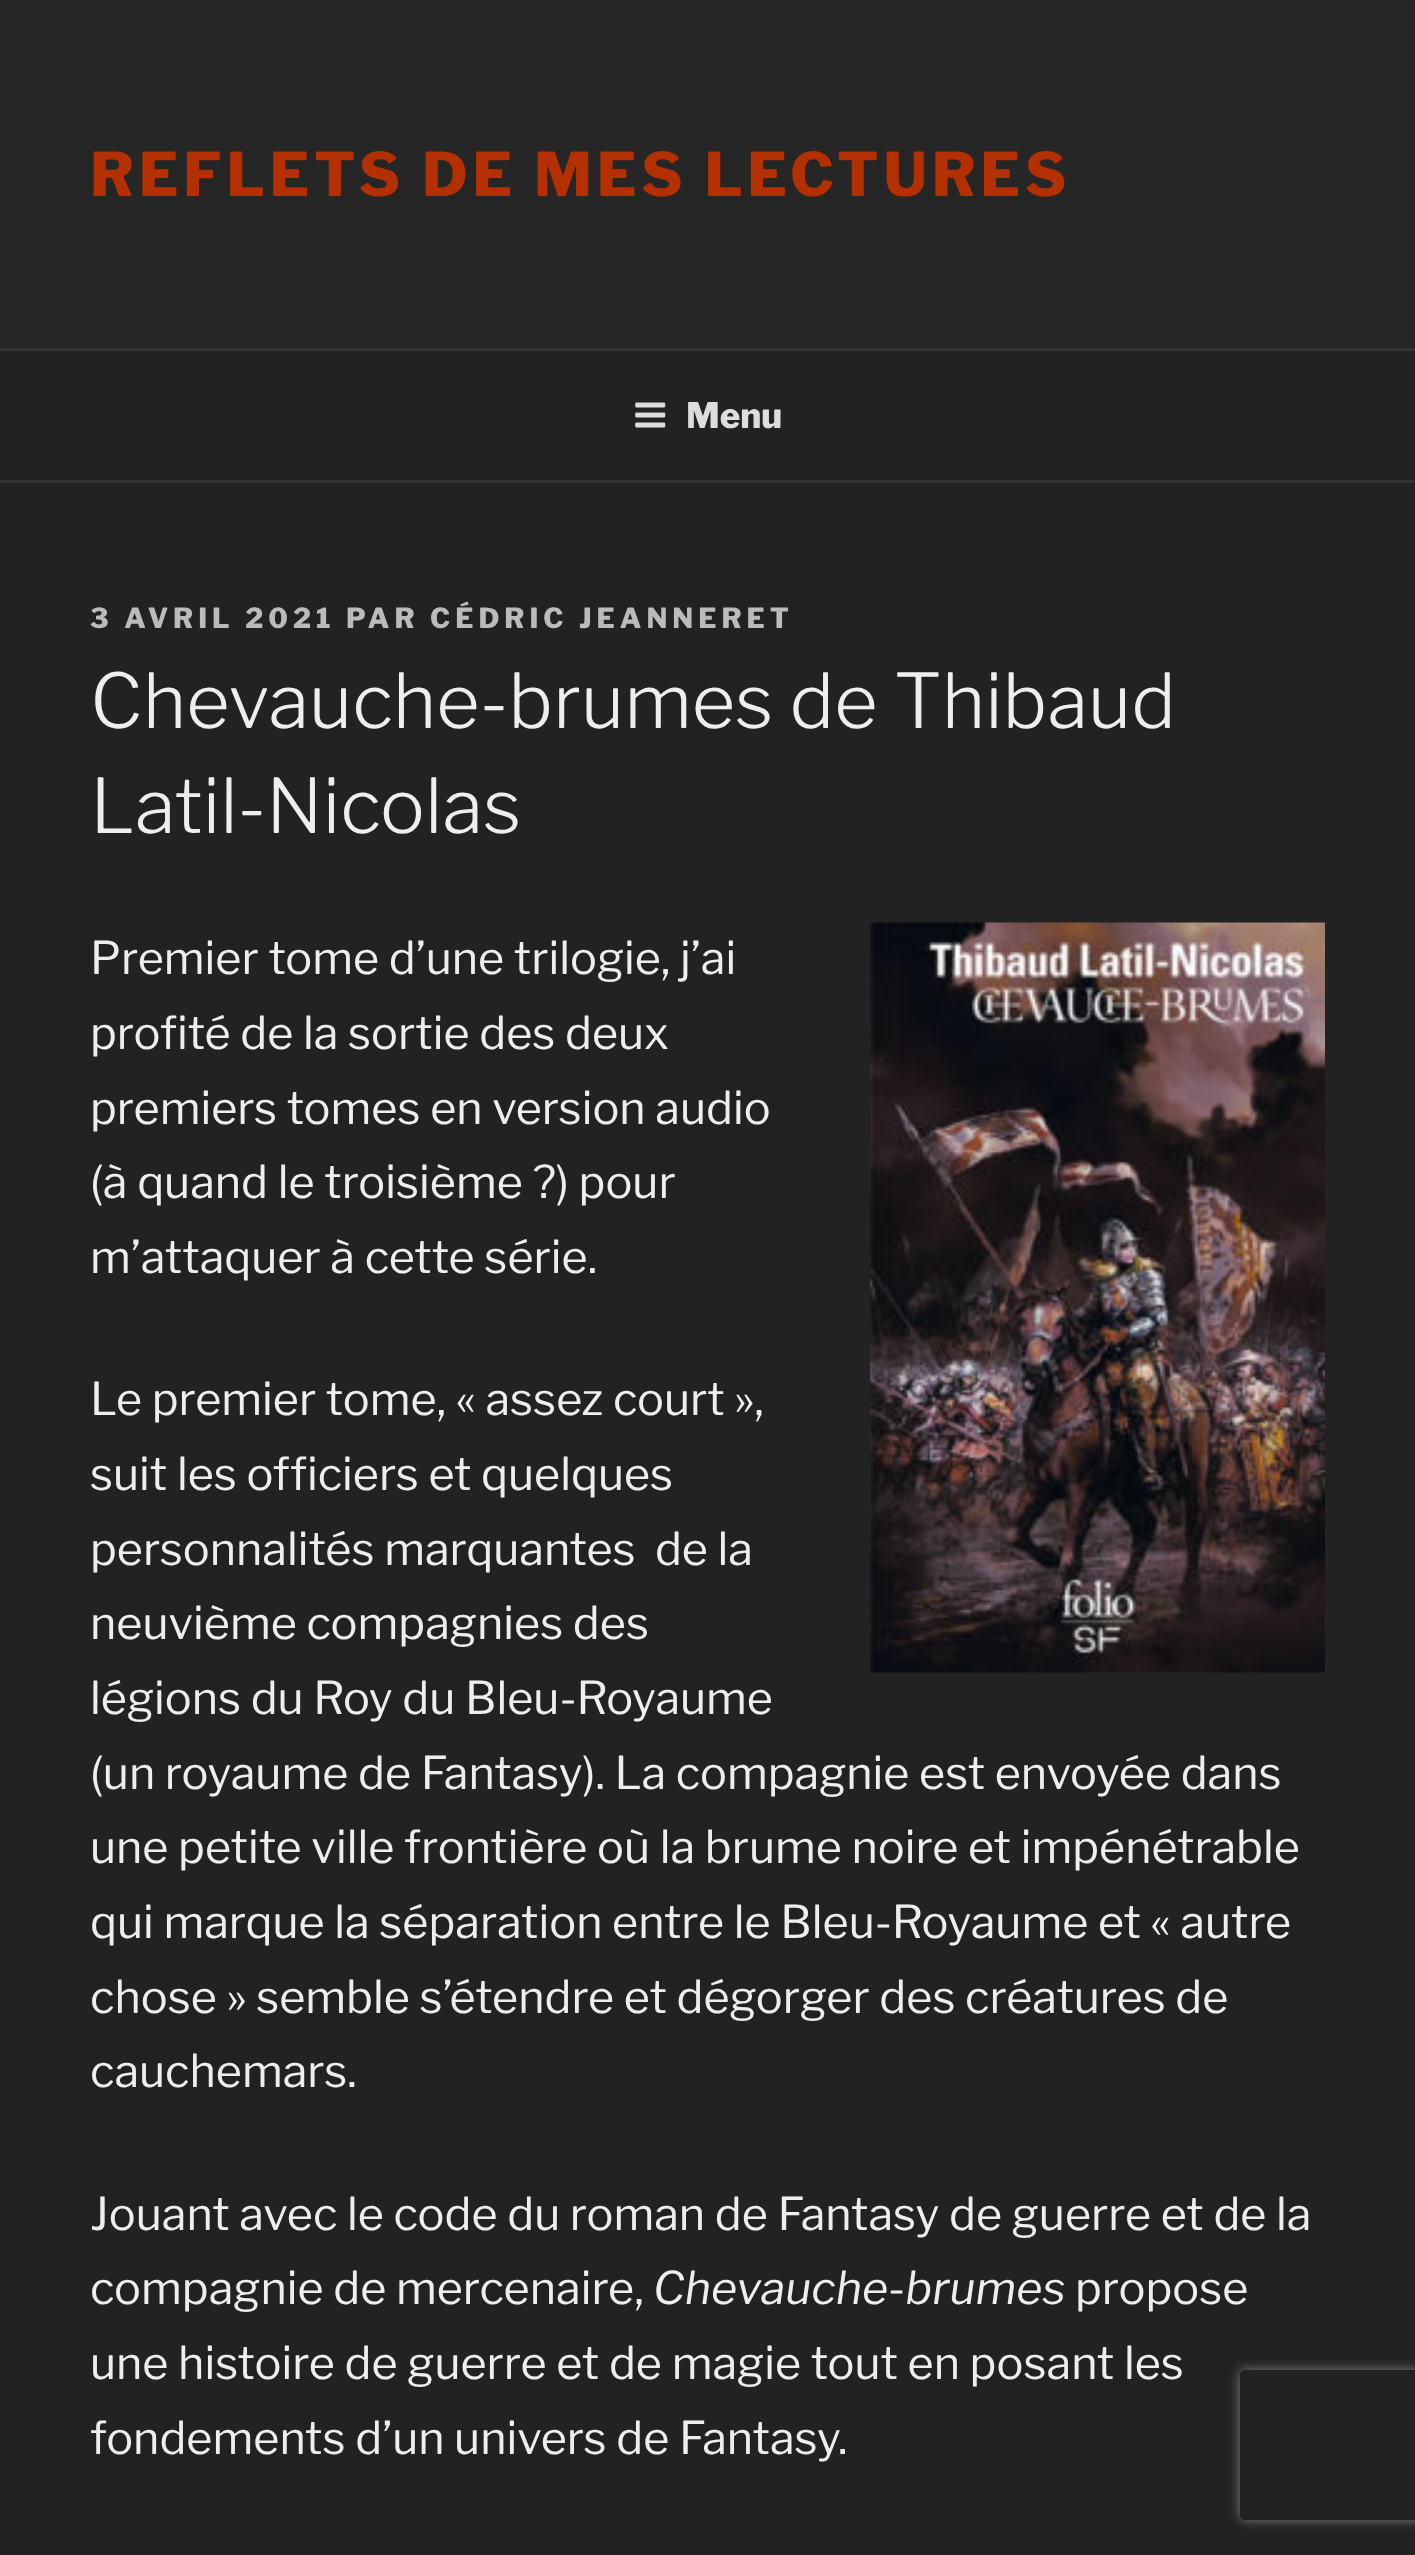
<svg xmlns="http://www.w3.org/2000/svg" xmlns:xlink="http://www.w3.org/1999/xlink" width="1415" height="2555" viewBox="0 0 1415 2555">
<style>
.cls-1{font:100 60px Libre Franklin;letter-spacing:4.8px;fill:#b53000}
.cls-2{font:100 35px Libre Franklin;fill:#dddddd}
.cls-3{font:100 27.5px Libre Franklin;letter-spacing:5px;fill:#bbbbbb}
.cls-4{font:100 75px 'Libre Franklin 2';fill:#eeeeee}
.cls-5{font:100 45px 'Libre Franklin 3';fill:#eeeeee}
.cls-6{font:italic 100 45px Libre Franklin;fill:#eeeeee}
</style>
<defs>
<clipPath id="clip1"><path d="M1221 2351H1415V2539H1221ZM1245 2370H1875C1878 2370 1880 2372 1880 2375V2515C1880 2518 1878 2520 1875 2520H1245C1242 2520 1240 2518 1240 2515V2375C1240 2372 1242 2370 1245 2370Z" clip-rule="evenodd"/></clipPath>
</defs>
<rect width="100%" height="100%" fill="#222222"/>
<rect fill="#262626" x="0" y="0" width="1415" height="348"/>
<rect fill="#333333" x="0" y="348" width="1415" height="3"/>
<rect fill="#333333" x="0" y="480" width="1415" height="3"/>
<image xlink:href="image0.png" x="635" y="402" width="31" height="26"/>
<image xlink:href="image1.png" x="870" y="922" width="455" height="751"/>
<g clip-path="url(#clip1)">
<rect fill="#808080" filter="blur(6px)" x="1240" y="2370" width="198" height="150" rx="5"/>
</g>
<text class="cls-1" x="90" y="196">REFLETS DE MES LECTURES</text>
<text class="cls-2" x="686" y="428">Menu</text>
<text class="cls-3" x="90" y="628">3 AVRIL 2021 PAR CÉDRIC JEANNERET</text>
<text class="cls-4"><tspan x="90" y="728">Chevauche-brumes de Thibaud</tspan><tspan x="90" y="833">Latil-Nicolas</tspan></text>
<text class="cls-5"><tspan x="90" y="974">Premier tome d’une trilogie, j’ai</tspan><tspan x="90" y="1049">profité de la sortie des deux</tspan><tspan x="90" y="1124">premiers tomes en version audio</tspan><tspan x="90" y="1198">(à quand le troisième ?) pour</tspan><tspan x="90" y="1273">m’attaquer à cette série.</tspan></text>
<text class="cls-5" xml:space="preserve"><tspan x="90" y="1415">Le premier tome, « assez court »,</tspan><tspan x="90" y="1490">suit les officiers et quelques</tspan><tspan x="90" y="1565">personnalités marquantes  de la</tspan><tspan x="90" y="1639">neuvième compagnies des</tspan><tspan x="90" y="1714">légions du Roy du Bleu-Royaume</tspan><tspan x="90" y="1789">(un royaume de Fantasy). La compagnie est envoyée dans</tspan><tspan x="90" y="1863">une petite ville frontière où la brume noire et impénétrable</tspan><tspan x="90" y="1938">qui marque la séparation entre le Bleu-Royaume et « autre</tspan><tspan x="90" y="2013">chose » semble s’étendre et dégorger des créatures de</tspan><tspan x="90" y="2087">cauchemars.</tspan></text>
<text class="cls-5"><tspan x="90" y="2230">Jouant avec le code du roman de Fantasy de guerre et de la</tspan><tspan x="90" y="2304">compagnie de mercenaire,</tspan></text>
<text class="cls-6" x="653" y="2304">Chevauche-brumes</text>
<text class="cls-5" x="1075" y="2304">propose</text>
<text class="cls-5"><tspan x="90" y="2379">une histoire de guerre et de magie tout en posant les</tspan><tspan x="90" y="2454">fondements d’un univers de Fantasy.</tspan></text>
</svg>
